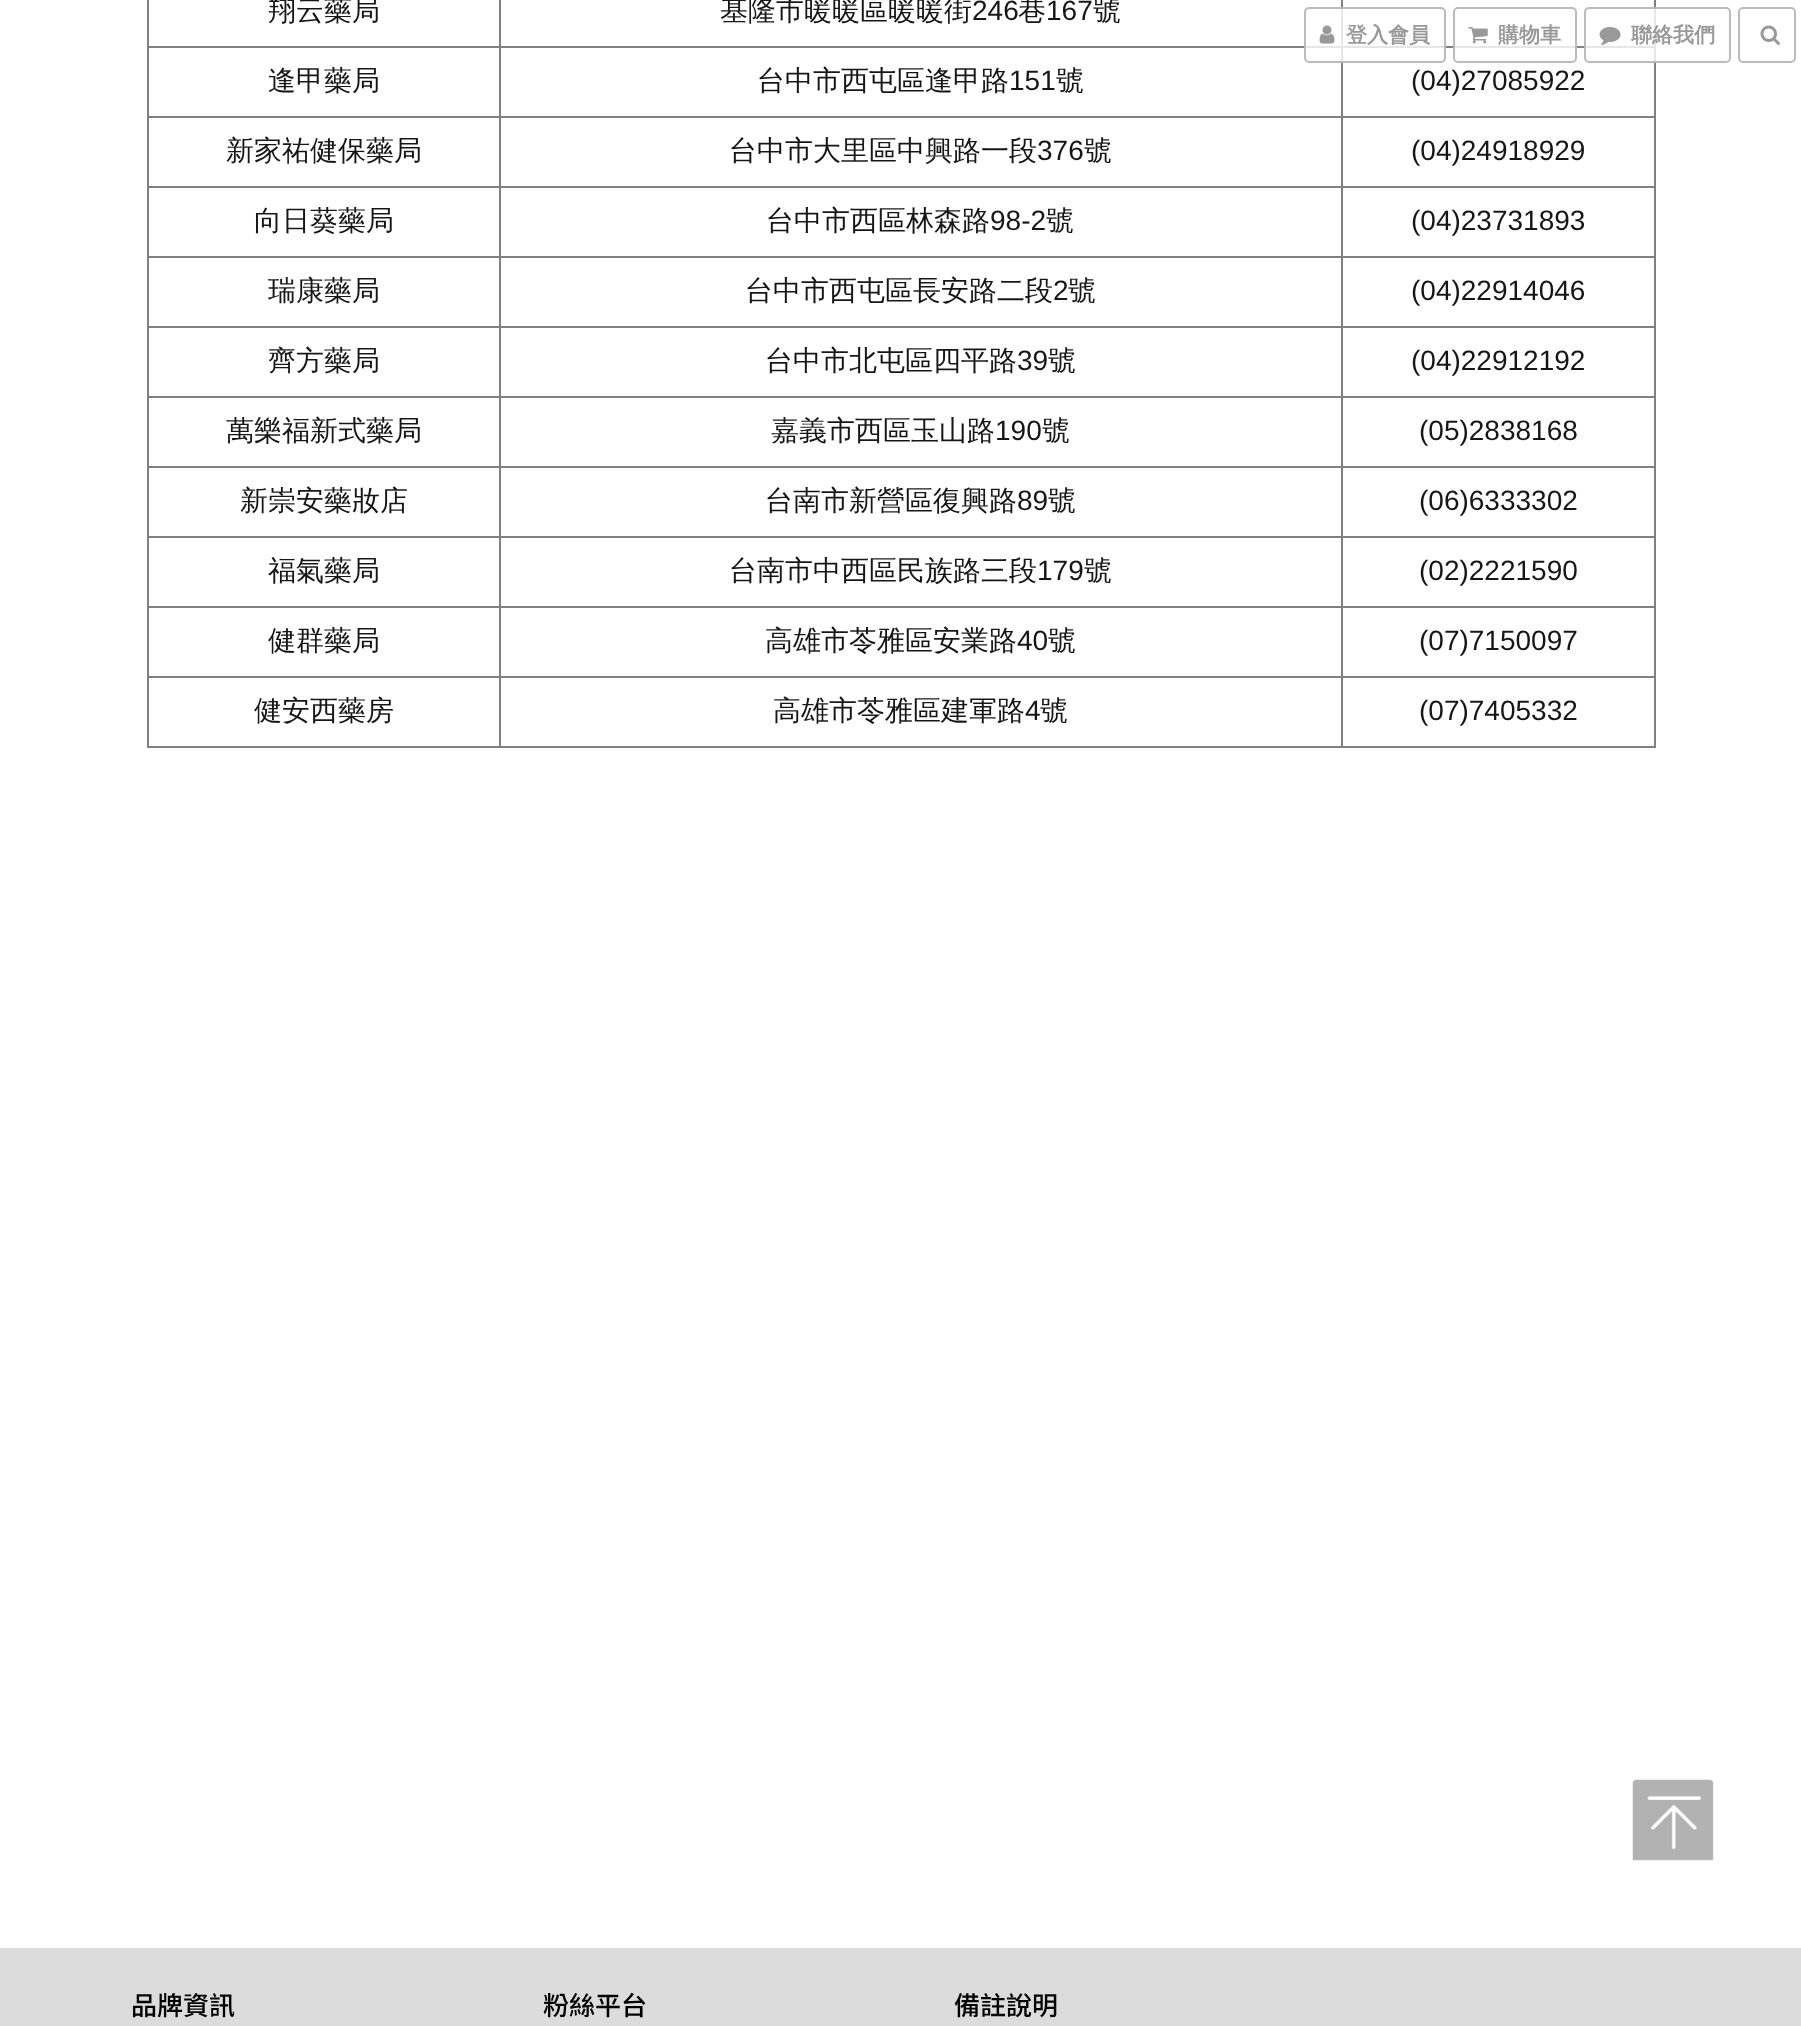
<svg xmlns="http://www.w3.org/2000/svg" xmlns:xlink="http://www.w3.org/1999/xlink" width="1801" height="2026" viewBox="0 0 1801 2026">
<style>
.cls-1{font:500 28px WenQuanYi Zen Hei;fill:#161616}
.cls-2{font:28px Liberation Sans;fill:#161616}
.cls-3{font:500 26px Noto Sans TC;fill:#000000}
.cls-4{font:bold 21px WenQuanYi Zen Hei;fill:#999999}
</style>
<rect width="100%" height="100%" fill="#ffffff"/>
<rect fill="#808080" x="1341" y="46" width="315" height="2"/>
<rect fill="#808080" x="1341" y="116" width="315" height="2"/>
<rect fill="#808080" x="1341" y="186" width="315" height="2"/>
<rect fill="#808080" x="1341" y="256" width="315" height="2"/>
<rect fill="#808080" x="1341" y="326" width="315" height="2"/>
<rect fill="#808080" x="1341" y="396" width="315" height="2"/>
<rect fill="#808080" x="1341" y="466" width="315" height="2"/>
<rect fill="#808080" x="1341" y="536" width="315" height="2"/>
<rect fill="#808080" x="1341" y="606" width="315" height="2"/>
<rect fill="#808080" x="1341" y="676" width="315" height="2"/>
<rect fill="#808080" x="1654" y="676" width="2" height="71"/>
<rect fill="#808080" x="1341" y="746" width="315" height="2"/>
<rect fill="#808080" x="1341" y="676" width="2" height="71"/>
<rect fill="#808080" x="499" y="676" width="843" height="2"/>
<rect fill="#808080" x="1341" y="606" width="2" height="71"/>
<rect fill="#808080" x="499" y="606" width="843" height="2"/>
<rect fill="#808080" x="1341" y="536" width="2" height="71"/>
<rect fill="#808080" x="499" y="536" width="843" height="2"/>
<rect fill="#808080" x="1341" y="466" width="2" height="71"/>
<rect fill="#808080" x="499" y="466" width="843" height="2"/>
<rect fill="#808080" x="1341" y="396" width="2" height="71"/>
<rect fill="#808080" x="499" y="396" width="843" height="2"/>
<rect fill="#808080" x="1341" y="326" width="2" height="71"/>
<rect fill="#808080" x="499" y="326" width="843" height="2"/>
<rect fill="#808080" x="1341" y="256" width="2" height="71"/>
<rect fill="#808080" x="499" y="256" width="843" height="2"/>
<rect fill="#808080" x="1341" y="186" width="2" height="71"/>
<rect fill="#808080" x="499" y="186" width="843" height="2"/>
<rect fill="#808080" x="1341" y="116" width="2" height="71"/>
<rect fill="#808080" x="499" y="116" width="843" height="2"/>
<rect fill="#808080" x="1341" y="46" width="2" height="71"/>
<rect fill="#808080" x="499" y="46" width="843" height="2"/>
<rect fill="#808080" x="499" y="746" width="843" height="2"/>
<rect fill="#808080" x="499" y="676" width="2" height="71"/>
<rect fill="#808080" x="147" y="676" width="354" height="2"/>
<rect fill="#808080" x="499" y="606" width="2" height="71"/>
<rect fill="#808080" x="147" y="606" width="354" height="2"/>
<rect fill="#808080" x="499" y="536" width="2" height="71"/>
<rect fill="#808080" x="147" y="536" width="354" height="2"/>
<rect fill="#808080" x="499" y="466" width="2" height="71"/>
<rect fill="#808080" x="147" y="466" width="354" height="2"/>
<rect fill="#808080" x="499" y="396" width="2" height="71"/>
<rect fill="#808080" x="147" y="396" width="354" height="2"/>
<rect fill="#808080" x="499" y="326" width="2" height="71"/>
<rect fill="#808080" x="147" y="326" width="354" height="2"/>
<rect fill="#808080" x="499" y="256" width="2" height="71"/>
<rect fill="#808080" x="147" y="256" width="354" height="2"/>
<rect fill="#808080" x="499" y="186" width="2" height="71"/>
<rect fill="#808080" x="147" y="186" width="354" height="2"/>
<rect fill="#808080" x="499" y="116" width="2" height="71"/>
<rect fill="#808080" x="147" y="116" width="354" height="2"/>
<rect fill="#808080" x="499" y="46" width="2" height="71"/>
<rect fill="#808080" x="147" y="46" width="354" height="2"/>
<rect fill="#808080" x="499" y="0" width="2" height="47"/>
<rect fill="#808080" x="1341" y="0" width="2" height="47"/>
<rect fill="#808080" x="147" y="746" width="354" height="2"/>
<rect fill="#808080" x="147" y="676" width="2" height="71"/>
<rect fill="#808080" x="147" y="606" width="2" height="71"/>
<rect fill="#808080" x="147" y="536" width="2" height="71"/>
<rect fill="#808080" x="147" y="466" width="2" height="71"/>
<rect fill="#808080" x="147" y="396" width="2" height="71"/>
<rect fill="#808080" x="147" y="326" width="2" height="71"/>
<rect fill="#808080" x="147" y="256" width="2" height="71"/>
<rect fill="#808080" x="147" y="186" width="2" height="71"/>
<rect fill="#808080" x="147" y="116" width="2" height="71"/>
<rect fill="#808080" x="147" y="0" width="2" height="117"/>
<rect fill="#808080" x="1654" y="606" width="2" height="71"/>
<rect fill="#808080" x="1654" y="536" width="2" height="71"/>
<rect fill="#808080" x="1654" y="466" width="2" height="71"/>
<rect fill="#808080" x="1654" y="396" width="2" height="71"/>
<rect fill="#808080" x="1654" y="326" width="2" height="71"/>
<rect fill="#808080" x="1654" y="256" width="2" height="71"/>
<rect fill="#808080" x="1654" y="186" width="2" height="71"/>
<rect fill="#808080" x="1654" y="116" width="2" height="71"/>
<rect fill="#808080" x="1654" y="0" width="2" height="117"/>
<rect fill="#dcdcdc" x="0" y="1948" width="1801" height="78"/>
<rect fill="#ffffff" fill-opacity="0.8" x="1304" y="7" width="142" height="56" rx="5"/>
<rect fill="none" stroke="#aaaaaa" stroke-opacity="0.8" stroke-width="2" x="1305" y="8" width="140" height="54" rx="4"/>
<image xlink:href="image0.png" x="1319" y="25" width="16" height="19"/>
<rect fill="#ffffff" fill-opacity="0.8" x="1453" y="7" width="124" height="56" rx="5"/>
<rect fill="none" stroke="#aaaaaa" stroke-opacity="0.8" stroke-width="2" x="1454" y="8" width="122" height="54" rx="4"/>
<image xlink:href="image1.png" x="1468" y="27" width="20" height="17"/>
<rect fill="#ffffff" fill-opacity="0.8" x="1584" y="7" width="147" height="56" rx="5"/>
<rect fill="none" stroke="#aaaaaa" stroke-opacity="0.8" stroke-width="2" x="1585" y="8" width="145" height="54" rx="4"/>
<image xlink:href="image2.png" x="1599" y="27" width="22" height="18"/>
<rect fill="none" stroke="#bbbbbb" stroke-width="2" x="1739" y="8" width="56" height="54" rx="4"/>
<image xlink:href="image3.png" x="1760" y="25" width="20" height="20"/>
<image xlink:href="image4.png" x="1632" y="1779" width="82" height="82"/>
<text class="cls-1" x="268" y="20">翔云藥局</text>
<text class="cls-1" x="720" y="20">基隆市暖暖區暖暖街</text>
<text class="cls-2" x="972" y="20">246</text>
<text class="cls-1" x="1018" y="20">巷</text>
<text class="cls-2" x="1046" y="20">167</text>
<text class="cls-1" x="1093" y="20">號</text>
<text class="cls-1" x="268" y="90">逢甲藥局</text>
<text class="cls-1" x="757" y="90">台中市西屯區逢甲路</text>
<text class="cls-2" x="1009" y="90">151</text>
<text class="cls-1" x="1056" y="90">號</text>
<text class="cls-2" x="1411" y="90">(04)27085922</text>
<text class="cls-1" x="226" y="160">新家祐健保藥局</text>
<text class="cls-1" x="729" y="160">台中市大里區中興路一段</text>
<text class="cls-2" x="1037" y="160">376</text>
<text class="cls-1" x="1084" y="160">號</text>
<text class="cls-2" x="1411" y="160">(04)24918929</text>
<text class="cls-1" x="254" y="230">向日葵藥局</text>
<text class="cls-1" x="766" y="230">台中市西區林森路</text>
<text class="cls-2" x="990" y="230">98-2</text>
<text class="cls-1" x="1046" y="230">號</text>
<text class="cls-2" x="1411" y="230">(04)23731893</text>
<text class="cls-1" x="268" y="300">瑞康藥局</text>
<text class="cls-1" x="745" y="300">台中市西屯區長安路二段</text>
<text class="cls-2" x="1053" y="300">2</text>
<text class="cls-1" x="1068" y="300">號</text>
<text class="cls-2" x="1411" y="300">(04)22914046</text>
<text class="cls-1" x="268" y="370">齊方藥局</text>
<text class="cls-1" x="765" y="370">台中市北屯區四平路</text>
<text class="cls-2" x="1017" y="370">39</text>
<text class="cls-1" x="1048" y="370">號</text>
<text class="cls-2" x="1411" y="370">(04)22912192</text>
<text class="cls-1" x="226" y="440">萬樂福新式藥局</text>
<text class="cls-1" x="771" y="440">嘉義市西區玉山路</text>
<text class="cls-2" x="995" y="440">190</text>
<text class="cls-1" x="1042" y="440">號</text>
<text class="cls-2" x="1419" y="440">(05)2838168</text>
<text class="cls-1" x="240" y="510">新崇安藥妝店</text>
<text class="cls-1" x="765" y="510">台南市新營區復興路</text>
<text class="cls-2" x="1017" y="510">89</text>
<text class="cls-1" x="1048" y="510">號</text>
<text class="cls-2" x="1419" y="510">(06)6333302</text>
<text class="cls-1" x="268" y="580">福氣藥局</text>
<text class="cls-1" x="729" y="580">台南市中西區民族路三段</text>
<text class="cls-2" x="1037" y="580">179</text>
<text class="cls-1" x="1084" y="580">號</text>
<text class="cls-2" x="1419" y="580">(02)2221590</text>
<text class="cls-1" x="268" y="650">健群藥局</text>
<text class="cls-1" x="765" y="650">高雄市苓雅區安業路</text>
<text class="cls-2" x="1017" y="650">40</text>
<text class="cls-1" x="1048" y="650">號</text>
<text class="cls-2" x="1419" y="650">(07)7150097</text>
<text class="cls-1" x="254" y="720">健安西藥房</text>
<text class="cls-1" x="773" y="720">高雄市苓雅區建軍路</text>
<text class="cls-2" x="1025" y="720">4</text>
<text class="cls-1" x="1040" y="720">號</text>
<text class="cls-2" x="1419" y="720">(07)7405332</text>
<text class="cls-3" x="131" y="2015">品牌資訊</text>
<text class="cls-3" x="543" y="2015">粉絲平台</text>
<text class="cls-3" x="954" y="2015">備註說明</text>
<text class="cls-4" x="1346" y="42">登入會員</text>
<text class="cls-4" x="1498" y="42">購物車</text>
<text class="cls-4" x="1631" y="42">聯絡我們</text>
</svg>
